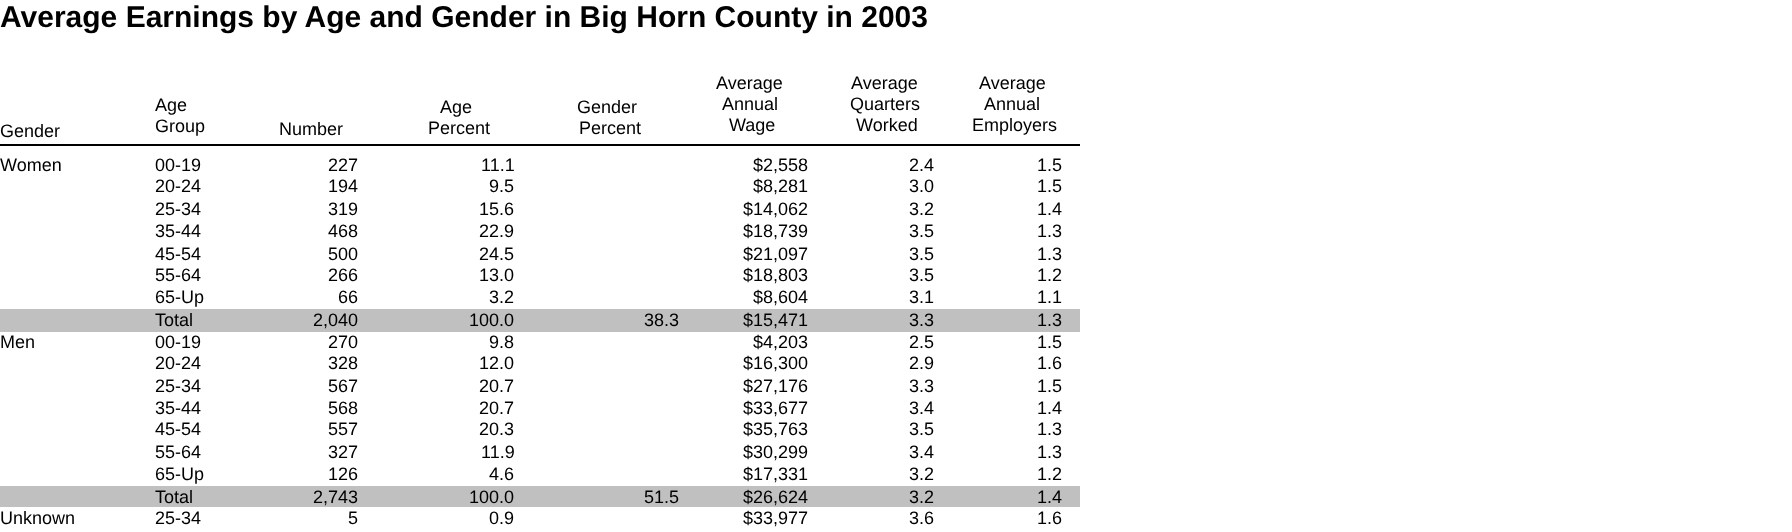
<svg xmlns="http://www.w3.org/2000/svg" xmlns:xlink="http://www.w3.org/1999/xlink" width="1792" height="532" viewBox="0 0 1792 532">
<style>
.cls-1{font:bold 30px Liberation Sans;fill:#000000}
.cls-2{font:18px Liberation Sans;fill:#000000}
</style>
<rect width="100%" height="100%" fill="#ffffff"/>
<rect fill="#000000" x="0" y="144" width="1080" height="2"/>
<rect fill="#c0c0c0" x="0" y="309" width="1080" height="23"/>
<rect fill="#c0c0c0" x="0" y="486" width="1080" height="21"/>
<text class="cls-1" x="0" y="27">Average Earnings by Age and Gender in Big Horn County in 2003</text>
<text class="cls-2" x="0" y="137">Gender</text>
<text class="cls-2"><tspan x="155" y="111">Age</tspan><tspan x="155" y="132">Group</tspan></text>
<text class="cls-2" x="279" y="135">Number</text>
<text class="cls-2" x="440" y="113">Age</text>
<text class="cls-2" x="428" y="134">Percent</text>
<text class="cls-2" x="577" y="113">Gender</text>
<text class="cls-2" x="579" y="134">Percent</text>
<text class="cls-2" x="716" y="89">Average</text>
<text class="cls-2" x="722" y="110">Annual</text>
<text class="cls-2" x="729" y="131">Wage</text>
<text class="cls-2" x="851" y="89">Average</text>
<text class="cls-2" x="850" y="110">Quarters</text>
<text class="cls-2" x="856" y="131">Worked</text>
<text class="cls-2" x="979" y="89">Average</text>
<text class="cls-2" x="984" y="110">Annual</text>
<text class="cls-2" x="972" y="131">Employers</text>
<text class="cls-2" x="0" y="171">Women</text>
<text class="cls-2" x="155" y="171">00-19</text>
<text class="cls-2" x="328" y="171">227</text>
<text class="cls-2" x="481" y="171">11.1</text>
<text class="cls-2" x="753" y="171">$2,558</text>
<text class="cls-2" x="909" y="171">2.4</text>
<text class="cls-2" x="1037" y="171">1.5</text>
<text class="cls-2" x="155" y="192">20-24</text>
<text class="cls-2" x="328" y="192">194</text>
<text class="cls-2" x="489" y="192">9.5</text>
<text class="cls-2" x="753" y="192">$8,281</text>
<text class="cls-2" x="909" y="192">3.0</text>
<text class="cls-2" x="1037" y="192">1.5</text>
<text class="cls-2" x="155" y="215">25-34</text>
<text class="cls-2" x="328" y="215">319</text>
<text class="cls-2" x="479" y="215">15.6</text>
<text class="cls-2" x="743" y="215">$14,062</text>
<text class="cls-2" x="909" y="215">3.2</text>
<text class="cls-2" x="1037" y="215">1.4</text>
<text class="cls-2" x="155" y="237">35-44</text>
<text class="cls-2" x="328" y="237">468</text>
<text class="cls-2" x="479" y="237">22.9</text>
<text class="cls-2" x="743" y="237">$18,739</text>
<text class="cls-2" x="909" y="237">3.5</text>
<text class="cls-2" x="1037" y="237">1.3</text>
<text class="cls-2" x="155" y="260">45-54</text>
<text class="cls-2" x="328" y="260">500</text>
<text class="cls-2" x="479" y="260">24.5</text>
<text class="cls-2" x="743" y="260">$21,097</text>
<text class="cls-2" x="909" y="260">3.5</text>
<text class="cls-2" x="1037" y="260">1.3</text>
<text class="cls-2" x="155" y="281">55-64</text>
<text class="cls-2" x="328" y="281">266</text>
<text class="cls-2" x="479" y="281">13.0</text>
<text class="cls-2" x="743" y="281">$18,803</text>
<text class="cls-2" x="909" y="281">3.5</text>
<text class="cls-2" x="1037" y="281">1.2</text>
<text class="cls-2" x="155" y="303">65-Up</text>
<text class="cls-2" x="338" y="303">66</text>
<text class="cls-2" x="489" y="303">3.2</text>
<text class="cls-2" x="753" y="303">$8,604</text>
<text class="cls-2" x="909" y="303">3.1</text>
<text class="cls-2" x="1037" y="303">1.1</text>
<text class="cls-2" x="155" y="326">Total</text>
<text class="cls-2" x="313" y="326">2,040</text>
<text class="cls-2" x="469" y="326">100.0</text>
<text class="cls-2" x="644" y="326">38.3</text>
<text class="cls-2" x="743" y="326">$15,471</text>
<text class="cls-2" x="909" y="326">3.3</text>
<text class="cls-2" x="1037" y="326">1.3</text>
<text class="cls-2" x="0" y="348">Men</text>
<text class="cls-2" x="155" y="348">00-19</text>
<text class="cls-2" x="328" y="348">270</text>
<text class="cls-2" x="489" y="348">9.8</text>
<text class="cls-2" x="753" y="348">$4,203</text>
<text class="cls-2" x="909" y="348">2.5</text>
<text class="cls-2" x="1037" y="348">1.5</text>
<text class="cls-2" x="155" y="369">20-24</text>
<text class="cls-2" x="328" y="369">328</text>
<text class="cls-2" x="479" y="369">12.0</text>
<text class="cls-2" x="743" y="369">$16,300</text>
<text class="cls-2" x="909" y="369">2.9</text>
<text class="cls-2" x="1037" y="369">1.6</text>
<text class="cls-2" x="155" y="392">25-34</text>
<text class="cls-2" x="328" y="392">567</text>
<text class="cls-2" x="479" y="392">20.7</text>
<text class="cls-2" x="743" y="392">$27,176</text>
<text class="cls-2" x="909" y="392">3.3</text>
<text class="cls-2" x="1037" y="392">1.5</text>
<text class="cls-2" x="155" y="414">35-44</text>
<text class="cls-2" x="328" y="414">568</text>
<text class="cls-2" x="479" y="414">20.7</text>
<text class="cls-2" x="743" y="414">$33,677</text>
<text class="cls-2" x="909" y="414">3.4</text>
<text class="cls-2" x="1037" y="414">1.4</text>
<text class="cls-2" x="155" y="435">45-54</text>
<text class="cls-2" x="328" y="435">557</text>
<text class="cls-2" x="479" y="435">20.3</text>
<text class="cls-2" x="743" y="435">$35,763</text>
<text class="cls-2" x="909" y="435">3.5</text>
<text class="cls-2" x="1037" y="435">1.3</text>
<text class="cls-2" x="155" y="458">55-64</text>
<text class="cls-2" x="328" y="458">327</text>
<text class="cls-2" x="481" y="458">11.9</text>
<text class="cls-2" x="743" y="458">$30,299</text>
<text class="cls-2" x="909" y="458">3.4</text>
<text class="cls-2" x="1037" y="458">1.3</text>
<text class="cls-2" x="155" y="480">65-Up</text>
<text class="cls-2" x="328" y="480">126</text>
<text class="cls-2" x="489" y="480">4.6</text>
<text class="cls-2" x="743" y="480">$17,331</text>
<text class="cls-2" x="909" y="480">3.2</text>
<text class="cls-2" x="1037" y="480">1.2</text>
<text class="cls-2" x="155" y="503">Total</text>
<text class="cls-2" x="313" y="503">2,743</text>
<text class="cls-2" x="469" y="503">100.0</text>
<text class="cls-2" x="644" y="503">51.5</text>
<text class="cls-2" x="743" y="503">$26,624</text>
<text class="cls-2" x="909" y="503">3.2</text>
<text class="cls-2" x="1037" y="503">1.4</text>
<text class="cls-2" x="0" y="524">Unknown</text>
<text class="cls-2" x="155" y="524">25-34</text>
<text class="cls-2" x="348" y="524">5</text>
<text class="cls-2" x="489" y="524">0.9</text>
<text class="cls-2" x="743" y="524">$33,977</text>
<text class="cls-2" x="909" y="524">3.6</text>
<text class="cls-2" x="1037" y="524">1.6</text>
</svg>
